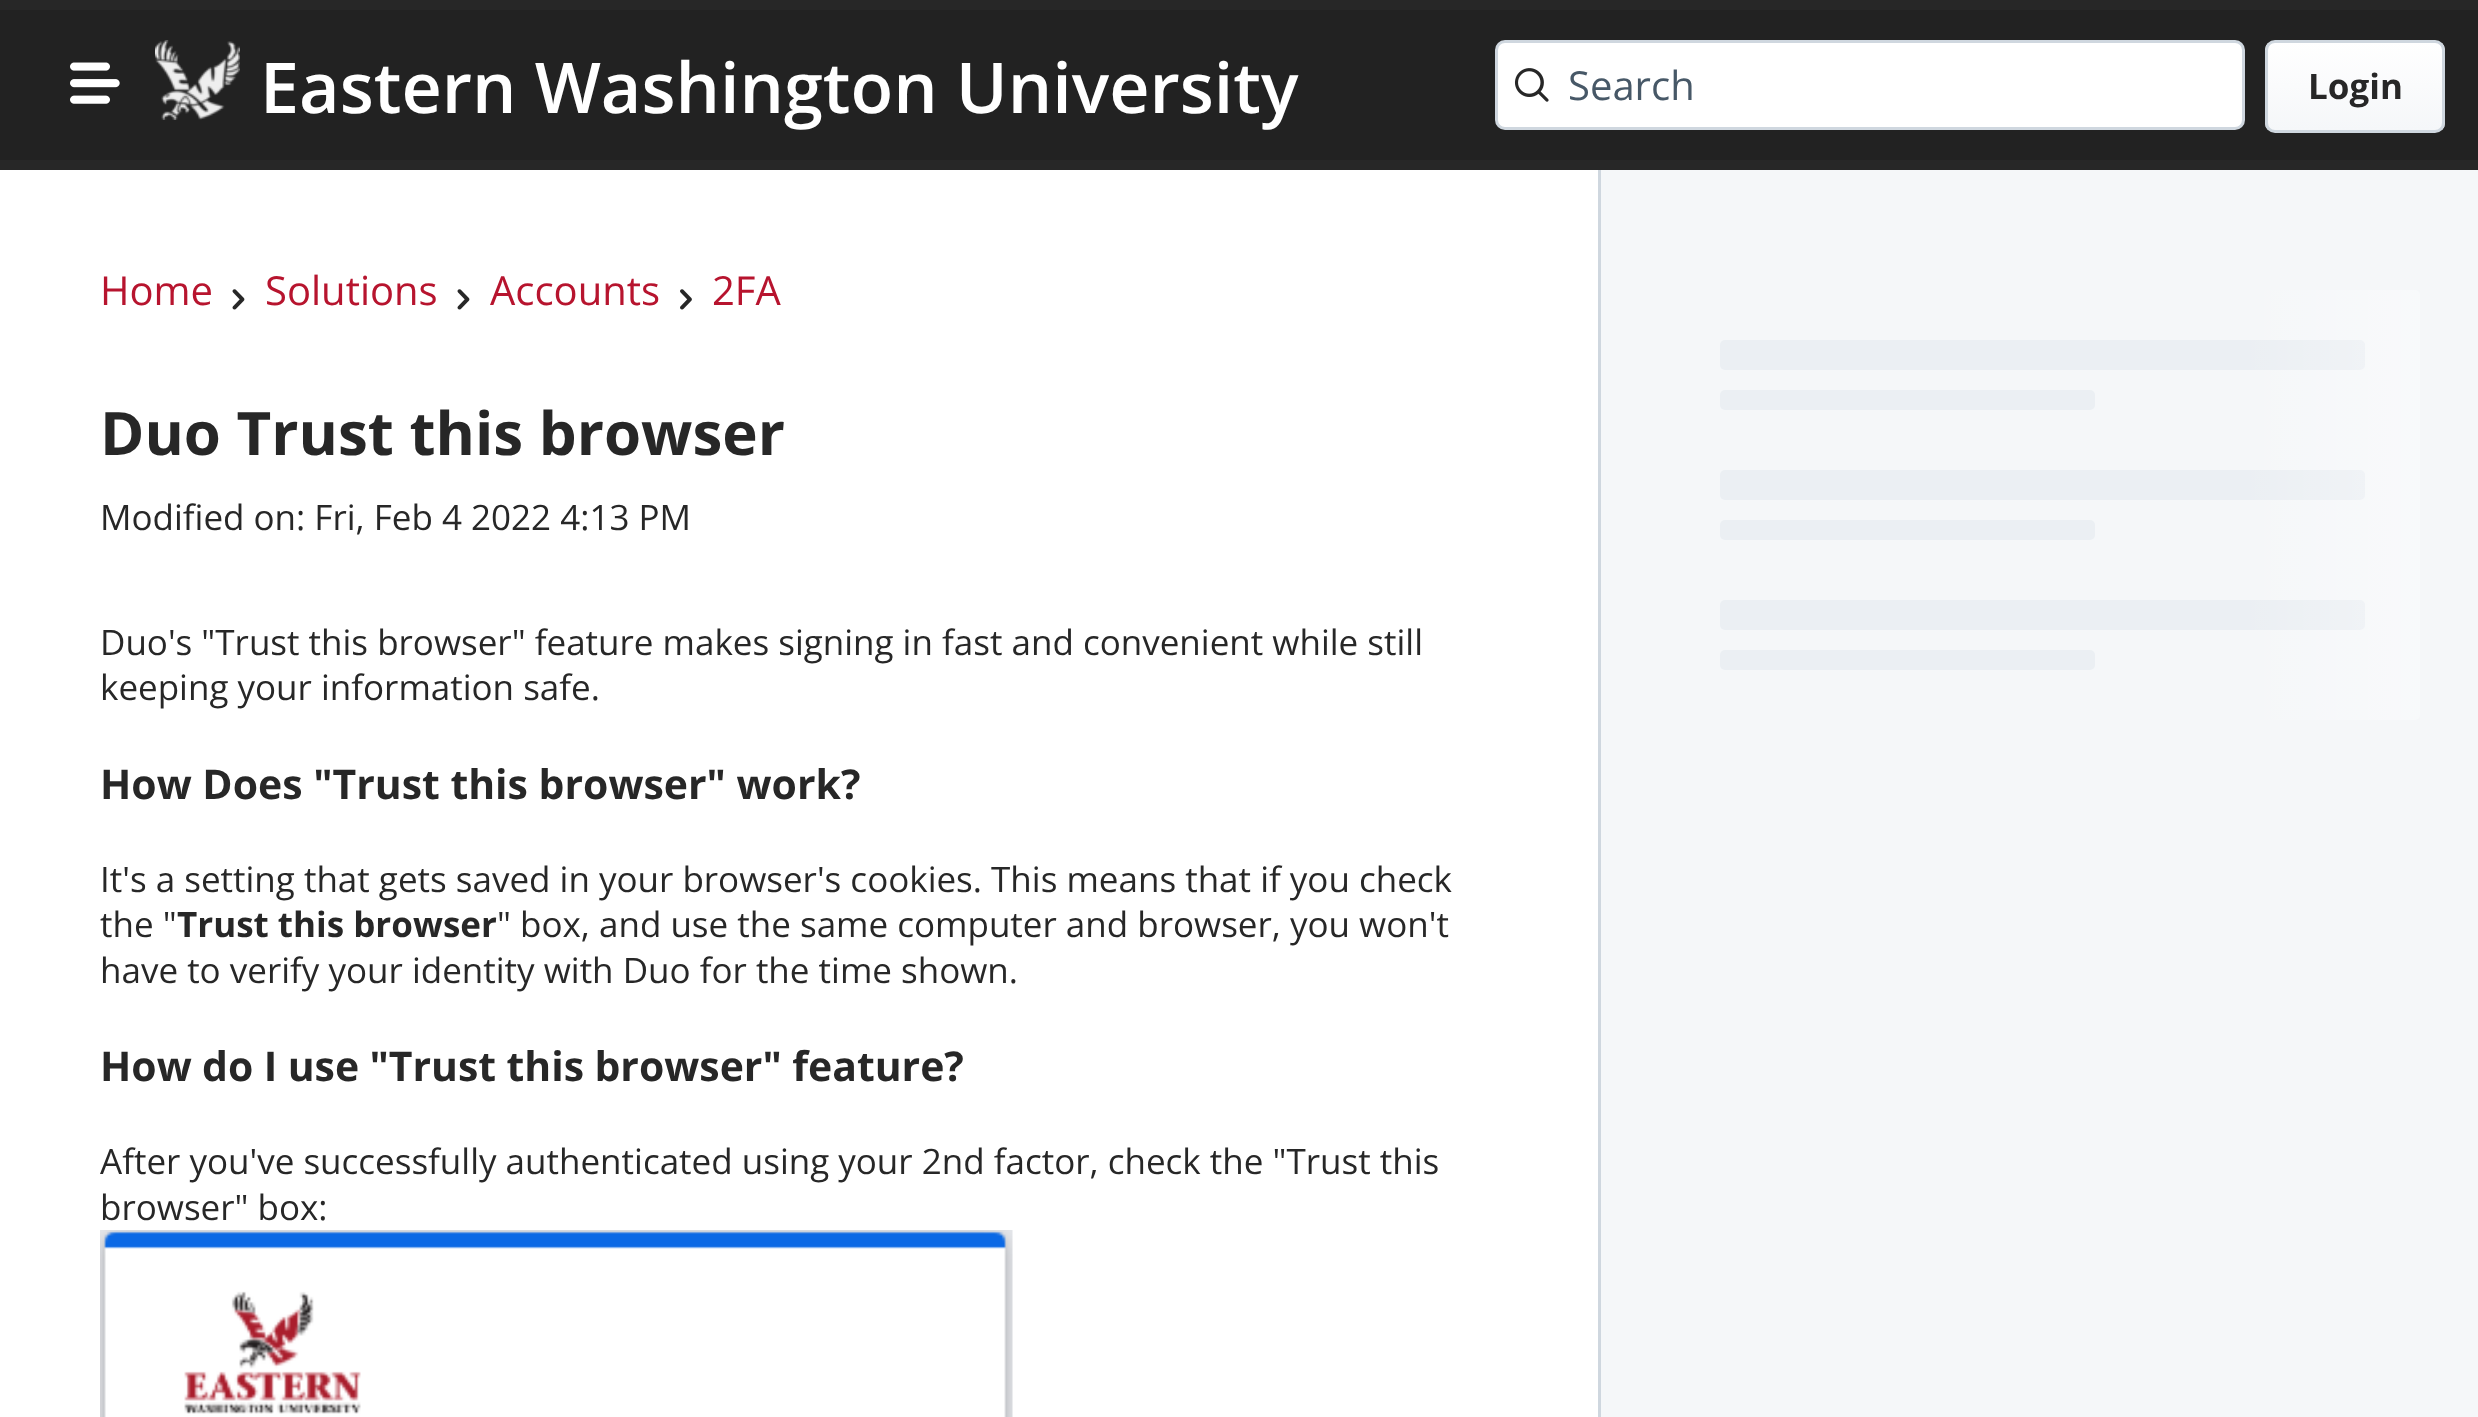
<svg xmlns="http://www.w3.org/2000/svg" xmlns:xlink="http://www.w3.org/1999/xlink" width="2478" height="1417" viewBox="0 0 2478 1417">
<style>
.cls-1{font:600 70px Open Sans;fill:#ffffff}
.cls-2{font:40px Open Sans;fill:#475867}
.cls-3{font:bold 35px Open Sans;fill:#272727}
.cls-4{font:40px Open Sans;fill:#b7142e}
.cls-5{font:bold 60px Open Sans;fill:#272727}
.cls-6{font:35px Open Sans;fill:#272727}
.cls-7{font:bold 40.95px Open Sans;fill:#272727}
</style>
<defs>
<clipPath id="clip1"><rect x="2265" y="40" width="180" height="93" rx="10"/></clipPath>
<linearGradient id="g1" gradientUnits="userSpaceOnUse" x1="2355" y1="42" x2="2355" y2="130"><stop offset="0" stop-color="#ffffff"/><stop offset="1" stop-color="#f5f7f9"/></linearGradient>
<linearGradient id="g2" gradientUnits="userSpaceOnUse" x1="143" y1="505" x2="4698" y2="505"><stop offset="0.46" stop-color="#ffffff" stop-opacity="0"/><stop offset="0.5" stop-color="#ffffff" stop-opacity="0.35"/><stop offset="0.54" stop-color="#ffffff" stop-opacity="0"/></linearGradient>
</defs>
<rect width="100%" height="100%" fill="#ffffff"/>
<rect fill="#272727" x="0" y="0" width="2478" height="170"/>
<rect fill="#222222" x="0" y="10" width="2478" height="150"/>
<image xlink:href="image0.png" x="70" y="62" width="50" height="42"/>
<image xlink:href="image1.png" x="155" y="40" width="85" height="80"/>
<rect fill="#ffffff" stroke="#cfd7df" stroke-width="3" x="1496.5" y="41.5" width="747" height="87" rx="8.5"/>
<image xlink:href="image2.png" x="1514" y="68" width="35" height="34"/>
<g clip-path="url(#clip1)">
<rect fill="url(#g1)" x="2265" y="43" width="180" height="87"/>
</g>
<rect fill="none" stroke="#cfd7df" stroke-width="3" x="2266.5" y="41.5" width="177" height="90" rx="8.5"/>
<image xlink:href="image3.png" x="232" y="289" width="13" height="21"/>
<image xlink:href="image3.png" x="457" y="289" width="13" height="21"/>
<image xlink:href="image4.png" x="680" y="289" width="12" height="21"/>
<image xlink:href="image5.png" x="100" y="1230" width="913" height="187"/>
<rect fill="#f5f7f9" x="1601" y="170" width="877" height="1247"/>
<rect fill="#cfd7df" x="1598" y="170" width="3" height="1247"/>
<rect fill="#ebeff3" x="1720" y="340" width="645" height="30" rx="5"/>
<rect fill="#ebeff3" x="1720" y="390" width="375" height="20" rx="5"/>
<rect fill="#ebeff3" x="1720" y="470" width="645" height="30" rx="5"/>
<rect fill="#ebeff3" x="1720" y="520" width="375" height="20" rx="5"/>
<rect fill="#ebeff3" x="1720" y="600" width="645" height="30" rx="5"/>
<rect fill="#ebeff3" x="1720" y="650" width="375" height="20" rx="5"/>
<rect fill="url(#g2)" x="1660" y="290" width="760" height="430" rx="5"/>
<text class="cls-1" x="260" y="113">Eastern Washington University</text>
<text class="cls-2" x="1568" y="100">Search</text>
<text class="cls-3" x="2308" y="99">Login</text>
<text class="cls-4" x="100" y="305">Home</text>
<text class="cls-4" x="265" y="305">Solutions</text>
<text class="cls-4" x="490" y="305">Accounts</text>
<text class="cls-4" x="712" y="305">2FA</text>
<text class="cls-5" x="100" y="455">Duo Trust this browser</text>
<text class="cls-6" x="100" y="530">Modified on: Fri, Feb 4 2022 4:13 PM</text>
<text class="cls-6"><tspan x="100" y="655">Duo's "Trust this browser" feature makes signing in fast and convenient while still</tspan><tspan x="100" y="700">keeping your information safe.</tspan></text>
<text class="cls-7" x="100" y="799">How Does "Trust this browser" work?</text>
<text class="cls-6"><tspan x="100" y="892">It's a setting that gets saved in your browser's cookies. This means that if you check</tspan><tspan x="100" y="937">the "</tspan></text>
<text class="cls-3" x="177" y="937">Trust this browser</text>
<text class="cls-6" x="497" y="937">" box, and use the same computer and browser, you won't</text>
<text class="cls-6" x="100" y="983">have to verify your identity with Duo for the time shown.</text>
<text class="cls-7" x="100" y="1081" word-spacing="-0.25">How do I use "Trust this browser" feature?</text>
<text class="cls-6"><tspan x="100" y="1174">After you've successfully authenticated using your 2nd factor, check the "Trust this</tspan><tspan x="100" y="1220">browser" box:</tspan></text>
</svg>
